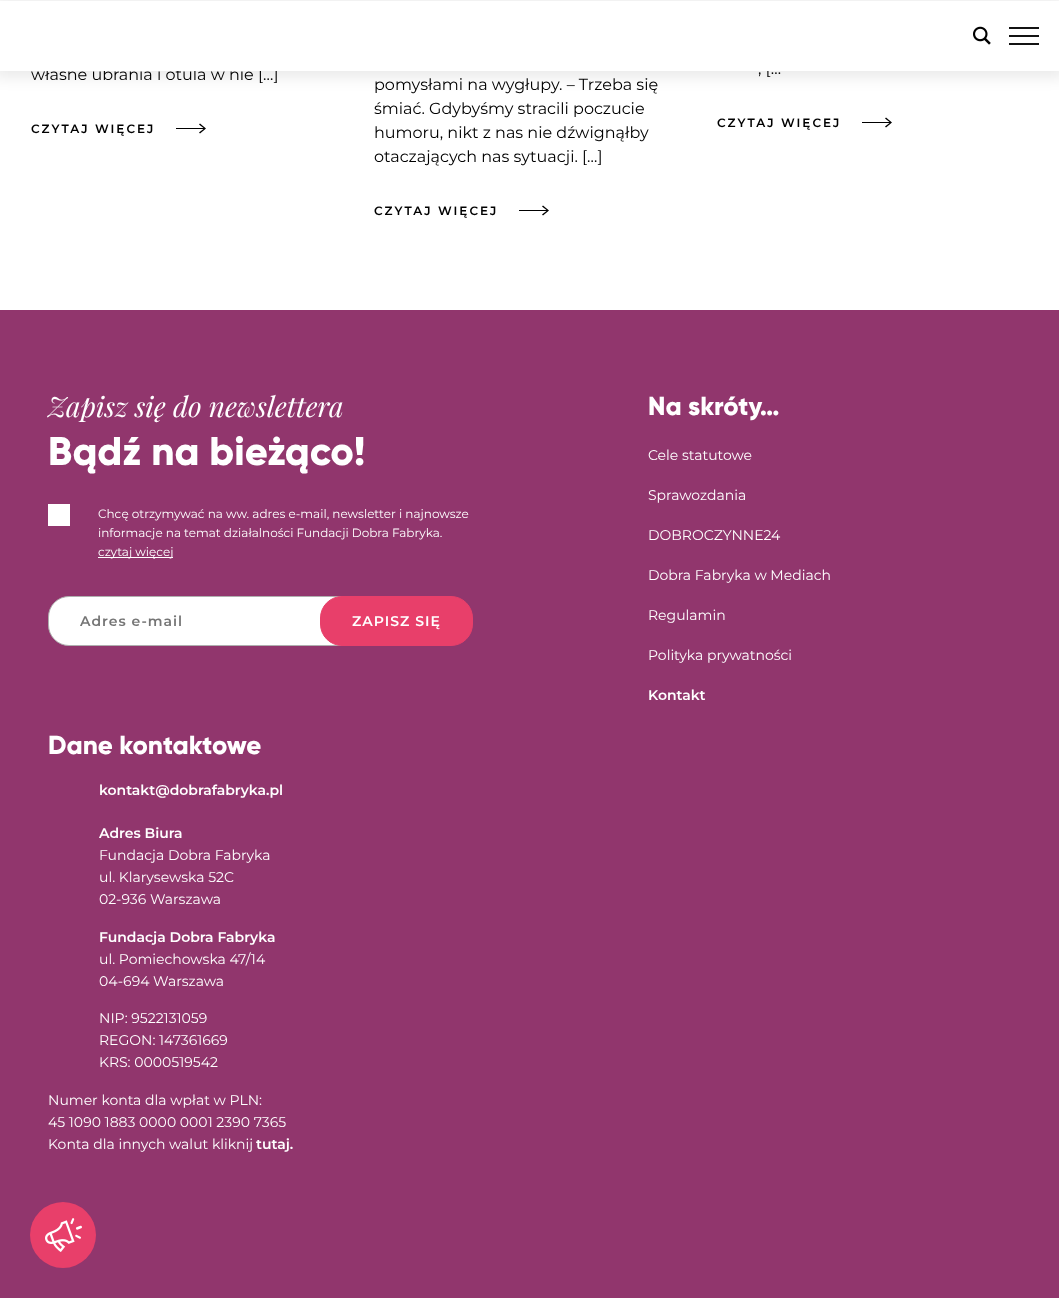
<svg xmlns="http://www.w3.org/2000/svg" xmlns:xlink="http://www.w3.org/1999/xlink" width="1059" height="1298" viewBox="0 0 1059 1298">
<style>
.cls-1{font:16px Montserrat;fill:#000000}
.cls-2{font:600 12px Montserrat;letter-spacing:2px;fill:#000000}
.cls-3{font:italic 28px Playfair Display;fill:#ffffff}
.cls-4{font:800 40px Gilroy;fill:#ffffff}
.cls-5{font:12px Montserrat;fill:#ffffff}
.cls-6{font:600 14px Montserrat;letter-spacing:1px;fill:#757575}
.cls-7{font:600 14px Montserrat;letter-spacing:1px;fill:#ffffff}
.cls-8{font:800 26px Gilroy;fill:#ffffff}
.cls-9{font:14px Montserrat;fill:#ffffff}
.cls-10{font:600 14px Montserrat;fill:#ffffff}
</style>
<rect width="100%" height="100%" fill="#ffffff"/>
<rect fill="#000000" fill-opacity="0.08" filter="blur(7px)" x="-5" y="-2" width="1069" height="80"/>
<path fill="#000000" d="M200 123.5L199 124.5L203.5 128H176V129H203.5L199 132.5L200 133.5L206 128.5Z"/>
<path fill="#000000" d="M543 205.5L542 206.5L546.5 210H519V211H546.5L542 214.5L543 215.5L549 210.5Z"/>
<path fill="#000000" d="M886 117.5L885 118.5L889.5 122H862V123H889.5L885 126.5L886 127.5L892 122.5Z"/>
<rect fill="#91366d" x="0" y="310" width="1059" height="988"/>
<rect fill="#ffffff" x="48" y="504" width="22" height="22"/>
<rect fill="#ffffff" x="98" y="557" width="75" height="1"/>
<rect fill="#ffffff" stroke="#afafaf" x="48.5" y="596.5" width="317" height="49" rx="20.5"/>
<rect fill="#e83f6a" stroke="#e83f6a" x="320.5" y="596.5" width="152" height="49" rx="21.5"/>
<circle fill="#e83f6a" cx="63" cy="1235" r="33"/>
<image xlink:href="image1.png" x="45" y="1218" width="37" height="34"/>
<text class="cls-1" x="31" y="80">własne ubrania i otula w nie […]</text>
<text class="cls-2" x="31" y="133">CZYTAJ WIĘCEJ</text>
<text class="cls-1"><tspan x="374" y="90">pomysłami na wygłupy. – Trzeba się</tspan><tspan x="374" y="114">śmiać. Gdybyśmy stracili poczucie</tspan><tspan x="374" y="138">humoru, nikt z nas nie dźwignąłby</tspan><tspan x="374" y="162">otaczających nas sytuacji. […]</tspan></text>
<text class="cls-2" x="374" y="215">CZYTAJ WIĘCEJ</text>
<text class="cls-1" x="758" y="74">, […</text>
<rect fill="#ffffff" x="0" y="1" width="1059" height="70"/>
<rect fill="#131313" x="1009" y="43" width="30" height="2"/>
<rect fill="#131313" x="1009" y="35" width="30" height="2"/>
<rect fill="#131313" x="1009" y="27" width="30" height="2"/>
<image xlink:href="image0.png" x="973" y="26" width="18" height="19"/>
<text class="cls-2" x="717" y="127">CZYTAJ WIĘCEJ</text>
<text class="cls-3" x="48" y="417">Zapisz się do newslettera</text>
<text class="cls-4" x="48" y="465">Bądź na bieżąco!</text>
<text class="cls-5"><tspan x="98" y="518">Chcę otrzymywać na ww. adres e-mail, newsletter i najnowsze</tspan><tspan x="98" y="537">informacje na temat działalności Fundacji Dobra Fabryka.</tspan><tspan x="98" y="556">czytaj więcej</tspan></text>
<text class="cls-6" x="80" y="626">Adres e-mail</text>
<text class="cls-7" x="352" y="626">ZAPISZ SIĘ</text>
<text class="cls-8" x="648" y="415">Na skróty…</text>
<text class="cls-9" x="648" y="460">Cele statutowe</text>
<text class="cls-9" x="648" y="500">Sprawozdania</text>
<text class="cls-9" x="648" y="540">DOBROCZYNNE24</text>
<text class="cls-9" x="648" y="580">Dobra Fabryka w Mediach</text>
<text class="cls-9" x="648" y="620">Regulamin</text>
<text class="cls-9" x="648" y="660">Polityka prywatności</text>
<text class="cls-10" x="648" y="700">Kontakt</text>
<text class="cls-8" x="48" y="754">Dane kontaktowe</text>
<text class="cls-10" x="99" y="795">kontakt@dobrafabryka.pl</text>
<text class="cls-10" x="99" y="838">Adres Biura</text>
<text class="cls-9"><tspan x="99" y="860">Fundacja Dobra Fabryka</tspan><tspan x="99" y="882">ul. Klarysewska 52C</tspan><tspan x="99" y="904">02-936 Warszawa</tspan></text>
<text class="cls-10" x="99" y="942">Fundacja Dobra Fabryka</text>
<text class="cls-9"><tspan x="99" y="964">ul. Pomiechowska 47/14</tspan><tspan x="99" y="986">04-694 Warszawa</tspan></text>
<text class="cls-9"><tspan x="99" y="1023">NIP: 9522131059</tspan><tspan x="99" y="1045">REGON: 147361669</tspan><tspan x="99" y="1067">KRS: 0000519542</tspan></text>
<text class="cls-9"><tspan x="48" y="1105">Numer konta dla wpłat w PLN:</tspan><tspan x="48" y="1127">45 1090 1883 0000 0001 2390 7365</tspan><tspan x="48" y="1149">Konta dla innych walut kliknij</tspan></text>
<text class="cls-10" x="256" y="1149">tutaj.</text>
</svg>
